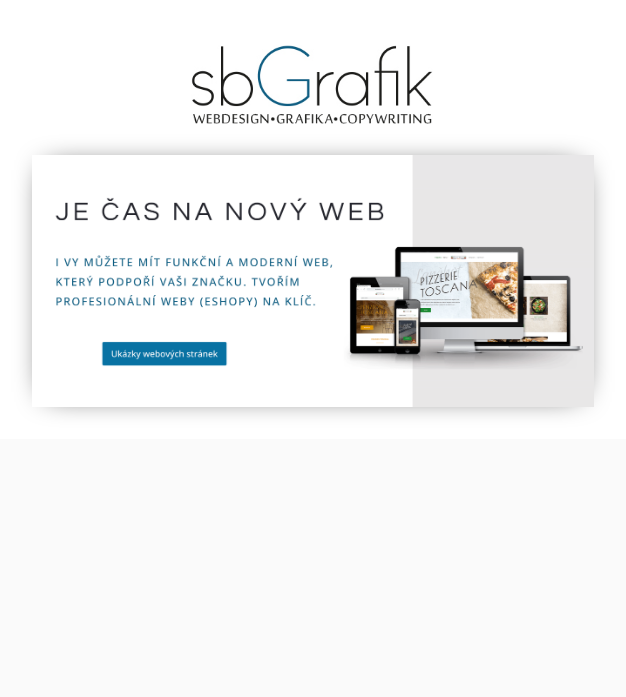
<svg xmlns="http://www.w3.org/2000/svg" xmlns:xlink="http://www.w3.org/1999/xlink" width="626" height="697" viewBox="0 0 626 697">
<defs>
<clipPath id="clip1"><path d="M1 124H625V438H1ZM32 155H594V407H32Z" clip-rule="evenodd"/></clipPath>
</defs>
<rect width="100%" height="100%" fill="#fafafa"/>
<rect fill="#ffffff" x="0" y="0" width="626" height="439"/>
<image xlink:href="image0.png" x="191" y="45" width="242" height="79"/>
<g clip-path="url(#clip1)">
<rect fill="#000000" filter="blur(15px)" x="47" y="170" width="532" height="222"/>
</g>
<image xlink:href="image1.png" x="55" y="155" width="539" height="252"/>
</svg>
